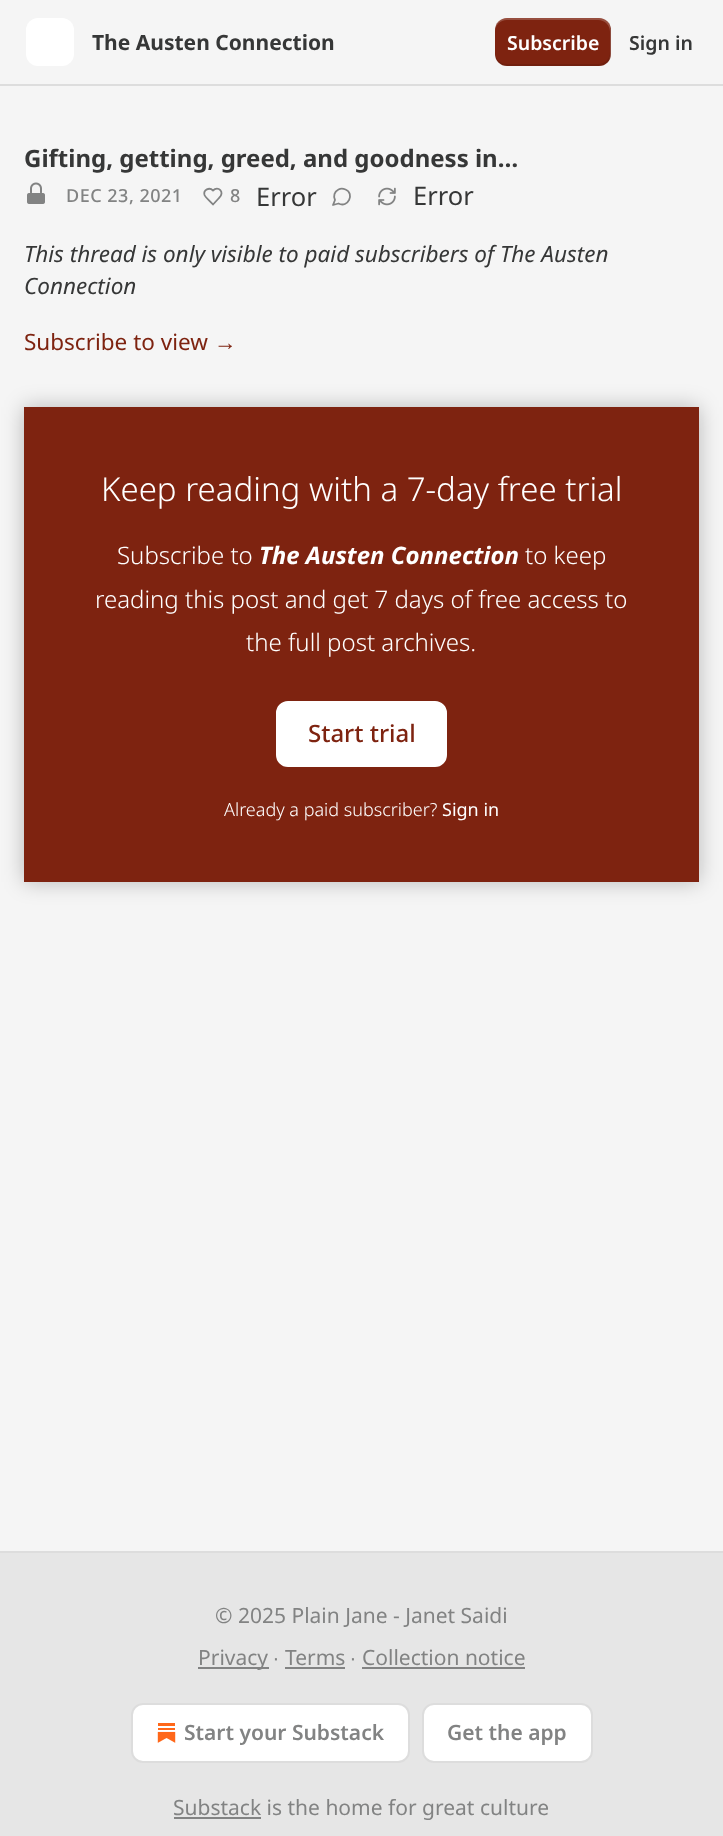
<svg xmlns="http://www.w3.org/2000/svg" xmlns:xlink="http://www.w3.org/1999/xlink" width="723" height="1836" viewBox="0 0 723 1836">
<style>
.cls-1{font:bold 21px Noto Sans;fill:#363737}
.cls-2{font:600 19.5px Noto Sans;fill:#ffffff}
.cls-3{font:600 19.5px Noto Sans;fill:#363737}
.cls-4{font:bold 24px Noto Sans;fill:#363737}
.cls-5{font:500 18px Noto Sans;letter-spacing:0.5px;fill:#828383}
.cls-6{font:25.5px Noto Sans;fill:#363737}
.cls-7{font:italic 22.5px Noto Sans;fill:#363737}
.cls-8{font:22.5px Noto Sans;fill:#7e2310}
.cls-9{font:22.5px Liberation Sans;fill:#7e2310}
.cls-10{font:300 33px Noto Sans;fill:#ffffff}
.cls-11{font:300 24px Noto Sans;fill:#ffffff}
.cls-12{font:italic bold 24px Noto Sans;fill:#ffffff}
.cls-13{font:500 24px Noto Sans;fill:#7e2310}
.cls-14{font:300 18px Noto Sans;fill:#ffffff}
.cls-15{font:18px Noto Sans;fill:#ffffff}
.cls-16{font:21px Noto Sans;fill:#828383}
.cls-17{font:21px Liberation Sans;fill:#828383}
.cls-18{font:600 21px Noto Sans;fill:#828383}
</style>
<defs>
<clipPath id="clip1"><path d="M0 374H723V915H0ZM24 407H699V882H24Z" clip-rule="evenodd"/></clipPath>
<clipPath id="clip2"><rect x="92" y="18" width="243" height="48"/></clipPath>
</defs>
<rect width="100%" height="100%" fill="#f5f5f5"/>
<rect fill="#dddddd" x="0" y="84" width="723" height="2"/>
<rect fill="#ffffff" x="26" y="18" width="48" height="48" rx="12"/>
<rect fill="#7e2310" x="495" y="18" width="116" height="48" rx="12"/>
<path fill="#000000" fill-opacity="0.1" d="M495 52V54C495 61 500 66 507 66H599C606 66 611 61 611 54V30C611 28 610 25 609 23L610 28V52C610 59 605 64 598 64H507C500 64 495 59 495 52Z"/>
<path fill="#ffffff" fill-opacity="0.2" d="M507 20H598C605 20 610 25 610 32V56L609 61C610 59 611 56 611 54V30C611 23 606 18 599 18H507C500 18 495 23 495 30V32C495 25 500 20 507 20Z"/>
<image xlink:href="image0.png" x="27" y="182" width="18" height="22"/>
<path fill="none" stroke="#828383" stroke-width="1.8" stroke-linecap="round" stroke-linejoin="round" d="M219 198C225.5 192 218 185.5 213 190.5C209.5 187 203 189.5 204.5 195C205.5 197.5 211 202 213 204.5Z"/>
<path fill="none" stroke="#828383" stroke-width="1.8" stroke-linecap="round" stroke-linejoin="round" d="M338.5 203.5C348 208.5 355 193.5 345.5 189.5C343 188.5 340.5 188.5 338.5 189.5C334.5 191.5 333 196 335 200L333 205Z"/>
<image xlink:href="image1.png" x="378" y="187" width="18" height="19"/>
<rect fill="#7e2310" x="24" y="407" width="675" height="475"/>
<rect fill="#ffffff" stroke="#ffffff" stroke-width="2" x="277" y="702" width="169" height="64" rx="11"/>
<g clip-path="url(#clip1)">
<rect fill="#000000" fill-opacity="0.25" filter="blur(10.5px)" x="24" y="407" width="675" height="475"/>
</g>
<rect fill="#e6e6e6" x="0" y="1553" width="723" height="283"/>
<rect fill="#dddddd" x="0" y="1551" width="723" height="2"/>
<rect fill="#828383" x="198" y="1667" width="71" height="2"/>
<rect fill="#828383" x="285" y="1667" width="60" height="2"/>
<rect fill="#828383" x="362" y="1667" width="163" height="2"/>
<rect fill="#ffffff" stroke="#dddddd" stroke-width="2" x="132" y="1704" width="277" height="58" rx="11"/>
<image xlink:href="image2.png" x="157" y="1723" width="19" height="20"/>
<rect fill="#ffffff" stroke="#dddddd" stroke-width="2" x="423" y="1704" width="169" height="58" rx="11"/>
<rect fill="#828383" x="174" y="1817" width="87" height="2"/>
<g clip-path="url(#clip2)">
<text class="cls-1" x="92" y="50">The Austen Connection</text>
</g>
<text class="cls-2" x="507" y="50">Subscribe</text>
<text class="cls-3" x="629" y="50">Sign in</text>
<text class="cls-4" x="24" y="167">Gifting, getting, greed, and goodness in…</text>
<text class="cls-5" x="66" y="202">DEC 23, 2021</text>
<text class="cls-5" x="230" y="202">8</text>
<text class="cls-6" x="256" y="206">Error</text>
<text class="cls-6" x="413" y="205">Error</text>
<text class="cls-7"><tspan x="24" y="262">This thread is only visible to paid subscribers of The Austen</tspan><tspan x="24" y="294">Connection</tspan></text>
<text class="cls-8" x="24" y="350">Subscribe to view</text>
<text class="cls-9" x="214" y="350">→</text>
<text class="cls-10" x="101" y="501">Keep reading with a 7-day free trial</text>
<text class="cls-11" x="117" y="564">Subscribe to</text>
<text class="cls-12" x="259" y="564">The Austen Connection</text>
<text class="cls-11" x="525" y="564">to keep</text>
<text class="cls-11" x="95" y="608">reading this post and get 7 days of free access to</text>
<text class="cls-11" x="246" y="651">the full post archives.</text>
<text class="cls-13" x="308" y="742">Start trial</text>
<text class="cls-14" x="224" y="816">Already a paid subscriber?</text>
<text class="cls-15" x="442" y="816">Sign in</text>
<text class="cls-16" x="215" y="1623">© 2025 Plain Jane - Janet Saidi</text>
<text class="cls-16" x="198" y="1665">Privacy</text>
<text class="cls-17" x="273" y="1665">∙</text>
<text class="cls-16" x="285" y="1665">Terms</text>
<text class="cls-17" x="350" y="1665">∙</text>
<text class="cls-16" x="362" y="1665">Collection notice</text>
<text class="cls-18" x="184" y="1740">Start your Substack</text>
<text class="cls-18" x="447" y="1740">Get the app</text>
<text class="cls-16" x="173" y="1815">Substack is the home for great culture</text>
</svg>
